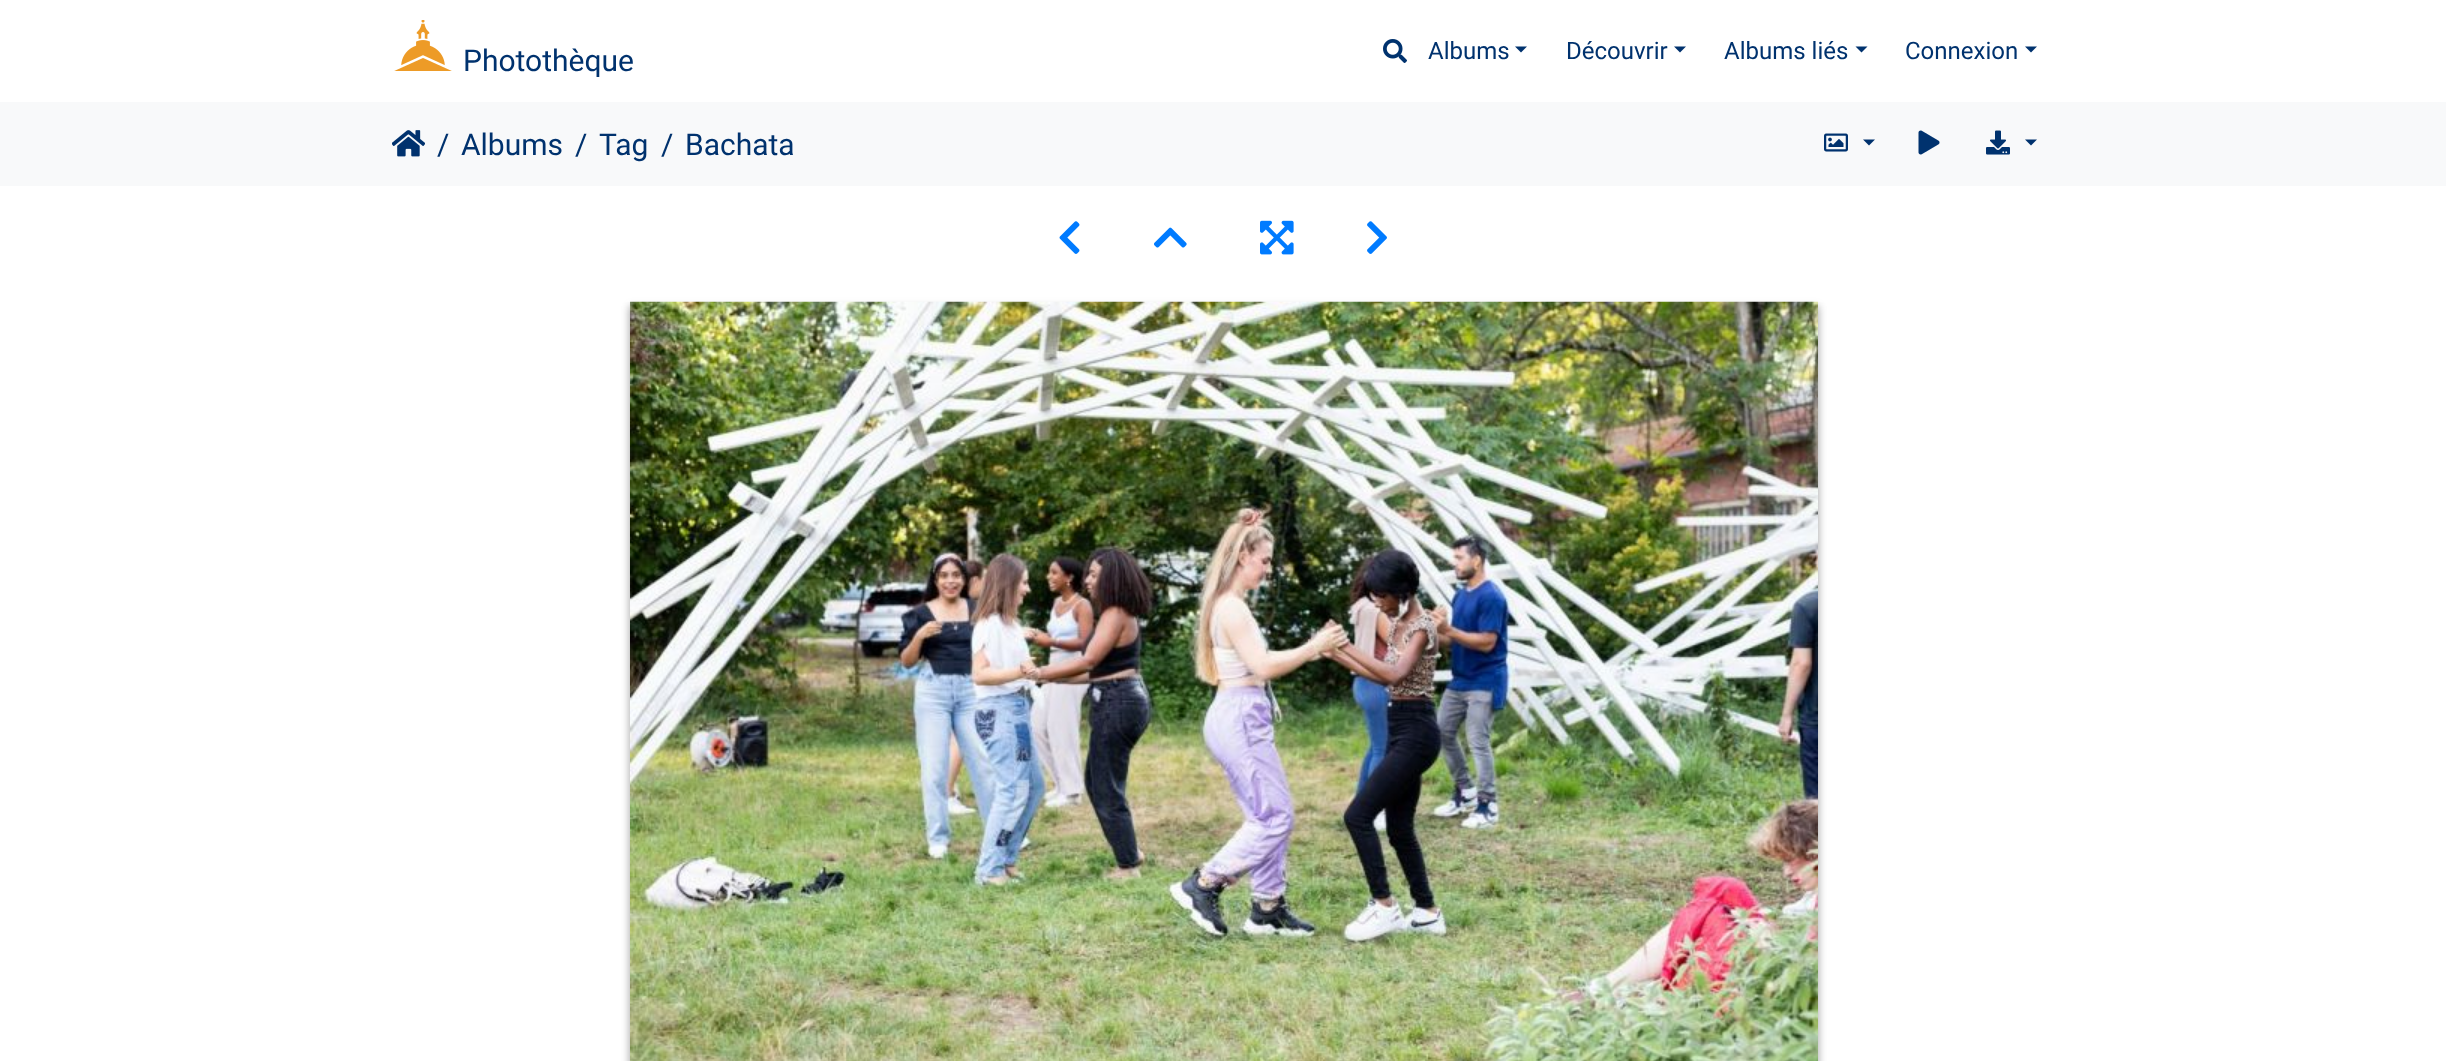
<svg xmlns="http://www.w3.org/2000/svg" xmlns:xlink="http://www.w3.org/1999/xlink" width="2446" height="1061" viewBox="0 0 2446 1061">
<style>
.cls-1{font:30px Roboto;fill:#00326e}
.cls-2{font:24px Roboto;fill:#00326e}
</style>
<defs>
<clipPath id="clip1"><rect x="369" y="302" width="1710" height="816"/></clipPath>
</defs>
<rect width="100%" height="100%" fill="#ffffff"/>
<image xlink:href="image0.png" x="394" y="20" width="58" height="51"/>
<image xlink:href="image1.png" x="1383" y="39" width="24" height="24"/>
<path fill="#00326e" d="M1515 46.5H1527L1521 52.5Z"/>
<path fill="#00326e" d="M1674 46.5H1686L1680 52.5Z"/>
<path fill="#00326e" d="M1855.5 46.5H1867.5L1861.5 52.5Z"/>
<path fill="#00326e" d="M2025 46.5H2037L2031 52.5Z"/>
<rect fill="#f8f9fa" x="0" y="102" width="2446" height="84"/>
<image xlink:href="image2.png" x="392" y="130" width="33" height="27"/>
<image xlink:href="image3.png" x="1824" y="133" width="24" height="19"/>
<path fill="#00326e" d="M1863 139.5H1875L1869 145.5Z"/>
<image xlink:href="image4.png" x="1918" y="130" width="22" height="25"/>
<image xlink:href="image5.png" x="1986" y="130" width="24" height="25"/>
<path fill="#00326e" d="M2025 139.5H2037L2031 145.5Z"/>
<image xlink:href="image6.png" x="1059" y="221" width="21" height="33"/>
<image xlink:href="image7.png" x="1154" y="227" width="33" height="21"/>
<image xlink:href="image8.png" x="1260" y="220" width="34" height="35"/>
<image xlink:href="image9.png" x="1367" y="221" width="20" height="33"/>
<g clip-path="url(#clip1)">
<rect fill="#000000" fill-opacity="0.23" filter="blur(4.5px)" x="630" y="306" width="1188" height="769"/>
</g>
<rect fill="#000000" fill-opacity="0.16" filter="blur(4.5px)" x="630" y="306" width="1188" height="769"/>
<image xlink:href="image10.png" x="630" y="301" width="1188" height="760"/>
<text class="cls-1" x="463" y="71">Photothèque</text>
<text class="cls-2" x="1428" y="59">Albums</text>
<text class="cls-2" x="1566" y="59">Découvrir</text>
<text class="cls-2" x="1724" y="59">Albums liés</text>
<text class="cls-2" x="1905" y="59">Connexion</text>
<text class="cls-1" x="437" y="155">/</text>
<text class="cls-1" x="461" y="155">Albums</text>
<text class="cls-1" x="575" y="155">/</text>
<text class="cls-1" x="599" y="155">Tag</text>
<text class="cls-1" x="661" y="155">/</text>
<text class="cls-1" x="685" y="155">Bachata</text>
</svg>
